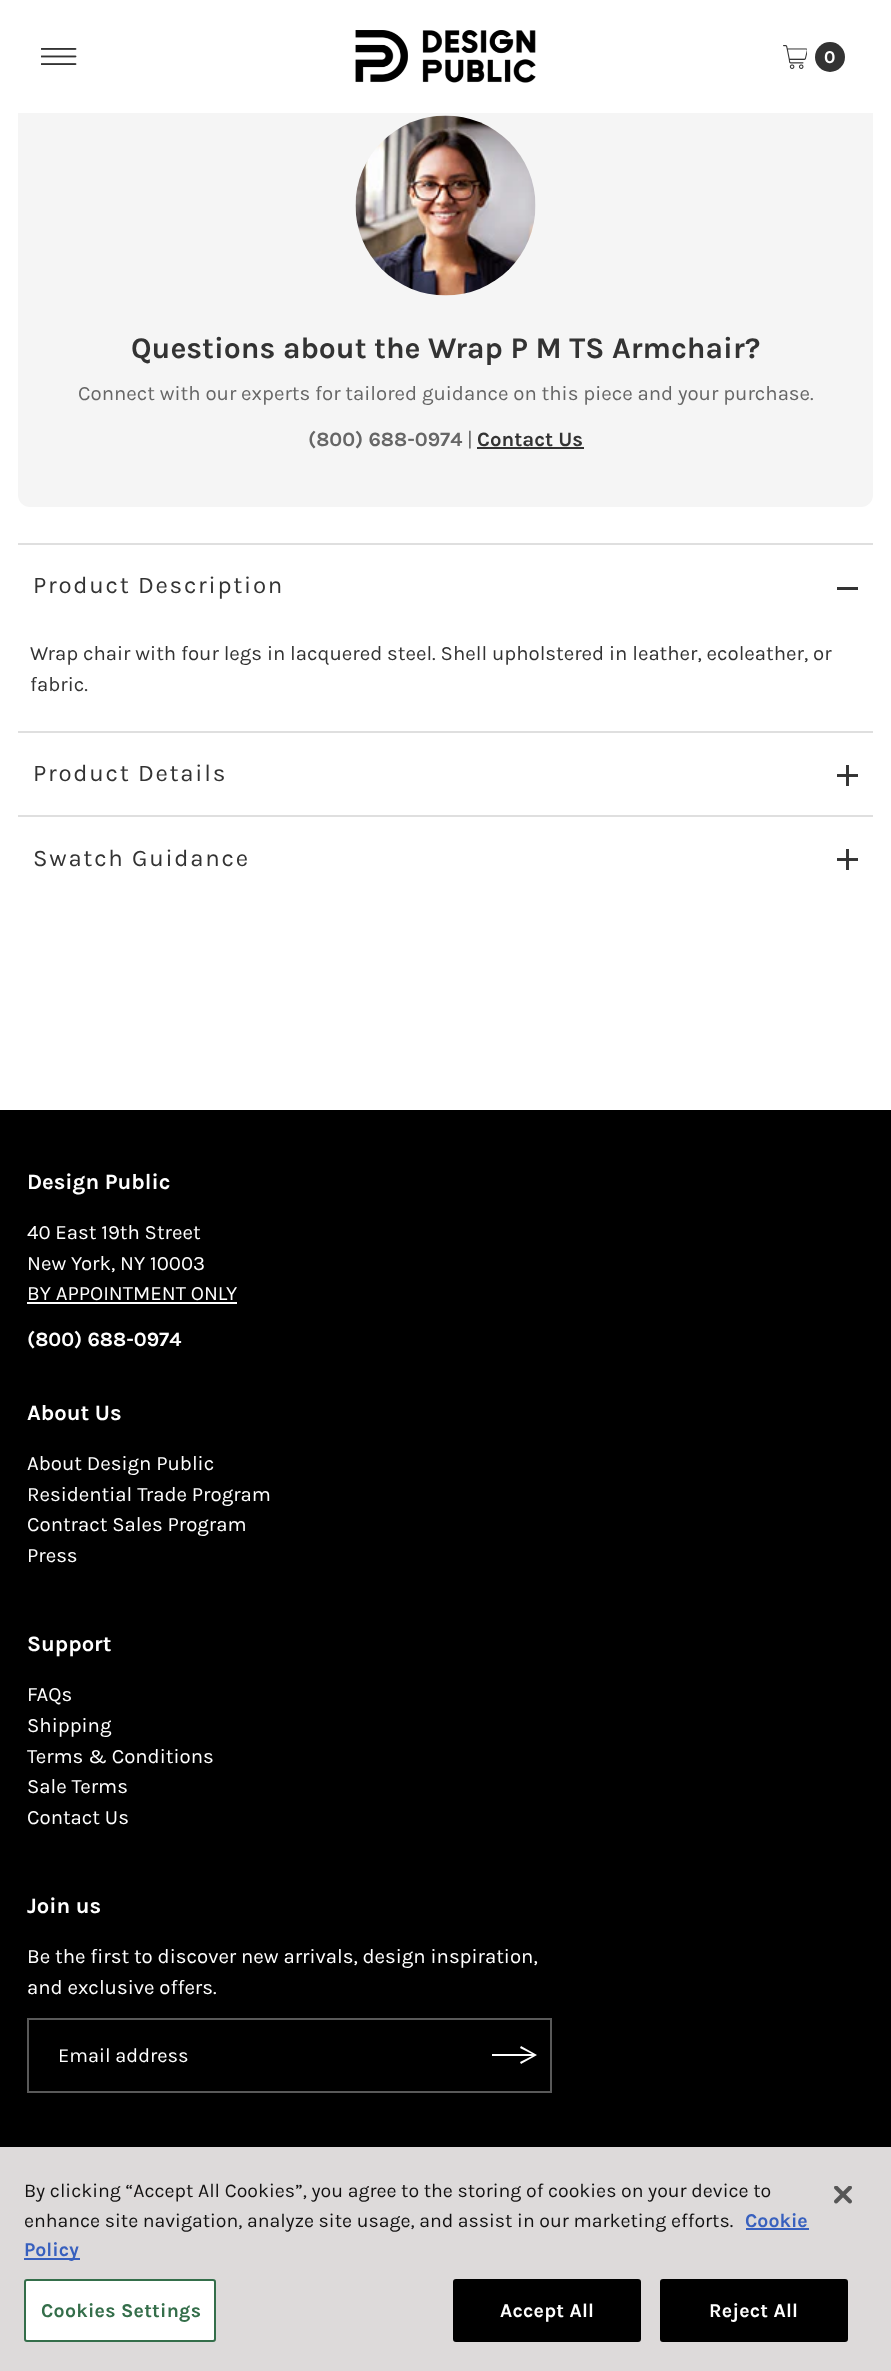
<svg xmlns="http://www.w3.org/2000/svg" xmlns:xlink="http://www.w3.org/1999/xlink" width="891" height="2371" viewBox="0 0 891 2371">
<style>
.cls-1{font:bold 18px Karla;fill:#ffffff}
.cls-2{font:bold 30px Karla;fill:#333333}
.cls-3{font:20.4px Karla;fill:#666666}
.cls-4{font:bold 20.4px Karla;fill:#666666}
.cls-5{font:bold 20.4px Karla;fill:#333333}
.cls-6{font:24px Karla;letter-spacing:1.75px;fill:#333333}
.cls-7{font:20.4px Karla;fill:#333333}
.cls-8{font:bold 22px Karla;fill:#ffffff}
.cls-9{font:20.4px Karla;fill:#ffffff}
.cls-10{font:bold 20.4px Karla;fill:#ffffff}
.cls-11{font:20px Karla;fill:#ffffff}
.cls-12{font:19.5px Karla;fill:#121111}
.cls-13{font:bold 19.5px Karla;fill:#3860be}
.cls-14{font:bold 19.5px Karla;letter-spacing:0.25px;fill:#346e4a}
.cls-15{font:bold 19.5px Karla;letter-spacing:0.25px;fill:#ffffff}
</style>
<rect width="100%" height="100%" fill="#ffffff"/>
<rect fill="#f5f5f5" x="18" y="80" width="855" height="427" rx="12"/>
<rect fill="#ffffff" x="18" y="80" width="855" height="33"/>
<image xlink:href="image0.png" x="41" y="48" width="36" height="17"/>
<image xlink:href="image1.png" x="355" y="30" width="181" height="53"/>
<image xlink:href="image2.png" x="783" y="45" width="24" height="24"/>
<circle fill="#333333" cx="830" cy="57" r="15"/>
<image xlink:href="image3.png" x="355" y="115" width="181" height="181"/>
<rect fill="#333333" x="477" y="447" width="107" height="2"/>
<rect fill="#dfdfdf" x="18" y="543" width="855" height="2"/>
<rect fill="#333333" x="837" y="587" width="21" height="3"/>
<rect fill="#dfdfdf" x="18" y="731" width="855" height="2"/>
<image xlink:href="image4.png" x="837" y="765" width="21" height="21"/>
<rect fill="#dfdfdf" x="18" y="815" width="855" height="2"/>
<image xlink:href="image4.png" x="837" y="849" width="21" height="21"/>
<rect fill="#000000" x="0" y="1110" width="891" height="1037"/>
<rect fill="#ffffff" x="27" y="1302" width="210" height="2"/>
<rect fill="none" stroke="#595959" stroke-width="2" x="28" y="2019" width="523" height="73"/>
<path fill="#ffffff" d="M521 2046L537 2055L521 2064L520 2062L532 2056H492V2054H532L520 2048Z"/>
<rect fill="#dddada" x="0" y="2147" width="891" height="224"/>
<rect fill="#3860be" x="746" y="2228" width="63" height="2"/>
<rect fill="#3860be" x="24" y="2258" width="56" height="2"/>
<rect fill="#ffffff" stroke="#346e4a" stroke-width="2" x="25" y="2280" width="190" height="61" rx="2"/>
<rect fill="#000000" stroke="#000000" stroke-width="2" x="454" y="2280" width="186" height="61" rx="2"/>
<rect fill="#000000" stroke="#000000" stroke-width="2" x="661" y="2280" width="186" height="61" rx="2"/>
<image xlink:href="image5.png" x="834" y="2186" width="18" height="18"/>
<text class="cls-1" x="824" y="63">0</text>
<text class="cls-2" x="131" y="358">Questions about the Wrap P M TS Armchair?</text>
<text class="cls-3" x="78" y="400">Connect with our experts for tailored guidance on this piece and your purchase.</text>
<text class="cls-4" x="308" y="446">(800) 688-0974</text>
<text class="cls-3" x="467" y="446">|</text>
<text class="cls-5" x="477" y="446">Contact Us</text>
<text class="cls-6" x="33" y="593">Product Description</text>
<text class="cls-7"><tspan x="30" y="660">Wrap chair with four legs in lacquered steel. Shell upholstered in leather, ecoleather, or</tspan><tspan x="30" y="691">fabric.</tspan></text>
<text class="cls-6" x="33" y="781">Product Details</text>
<text class="cls-6" x="33" y="866">Swatch Guidance</text>
<text class="cls-8" x="27" y="1189">Design Public</text>
<text class="cls-9"><tspan x="27" y="1239">40 East 19th Street</tspan><tspan x="27" y="1270">New York, NY 10003</tspan><tspan x="27" y="1300">BY APPOINTMENT ONLY</tspan></text>
<text class="cls-10" x="27" y="1346">(800) 688-0974</text>
<text class="cls-8" x="27" y="1420">About Us</text>
<text class="cls-9"><tspan x="27" y="1470">About Design Public</tspan><tspan x="27" y="1501">Residential Trade Program</tspan><tspan x="27" y="1531">Contract Sales Program</tspan><tspan x="27" y="1562">Press</tspan></text>
<text class="cls-8" x="27" y="1651">Support</text>
<text class="cls-9"><tspan x="27" y="1701">FAQs</tspan><tspan x="27" y="1732">Shipping</tspan><tspan x="27" y="1763">Terms &amp; Conditions</tspan><tspan x="27" y="1793">Sale Terms</tspan><tspan x="27" y="1824">Contact Us</tspan></text>
<text class="cls-8" x="27" y="1913">Join us</text>
<text class="cls-9"><tspan x="27" y="1963">Be the first to discover new arrivals, design inspiration,</tspan><tspan x="27" y="1994">and exclusive offers.</tspan></text>
<text class="cls-11" x="58" y="2062">Email address</text>
<text class="cls-12"><tspan x="24" y="2197">By clicking “Accept All Cookies”, you agree to the storing of cookies on your device to</tspan><tspan x="24" y="2227">enhance site navigation, analyze site usage, and assist in our marketing efforts.</tspan></text>
<text class="cls-13" x="745" y="2227">Cookie</text>
<text class="cls-13" x="24" y="2256">Policy</text>
<text class="cls-14" x="41" y="2317">Cookies Settings</text>
<text class="cls-15" x="500" y="2317">Accept All</text>
<text class="cls-15" x="709" y="2317">Reject All</text>
</svg>
